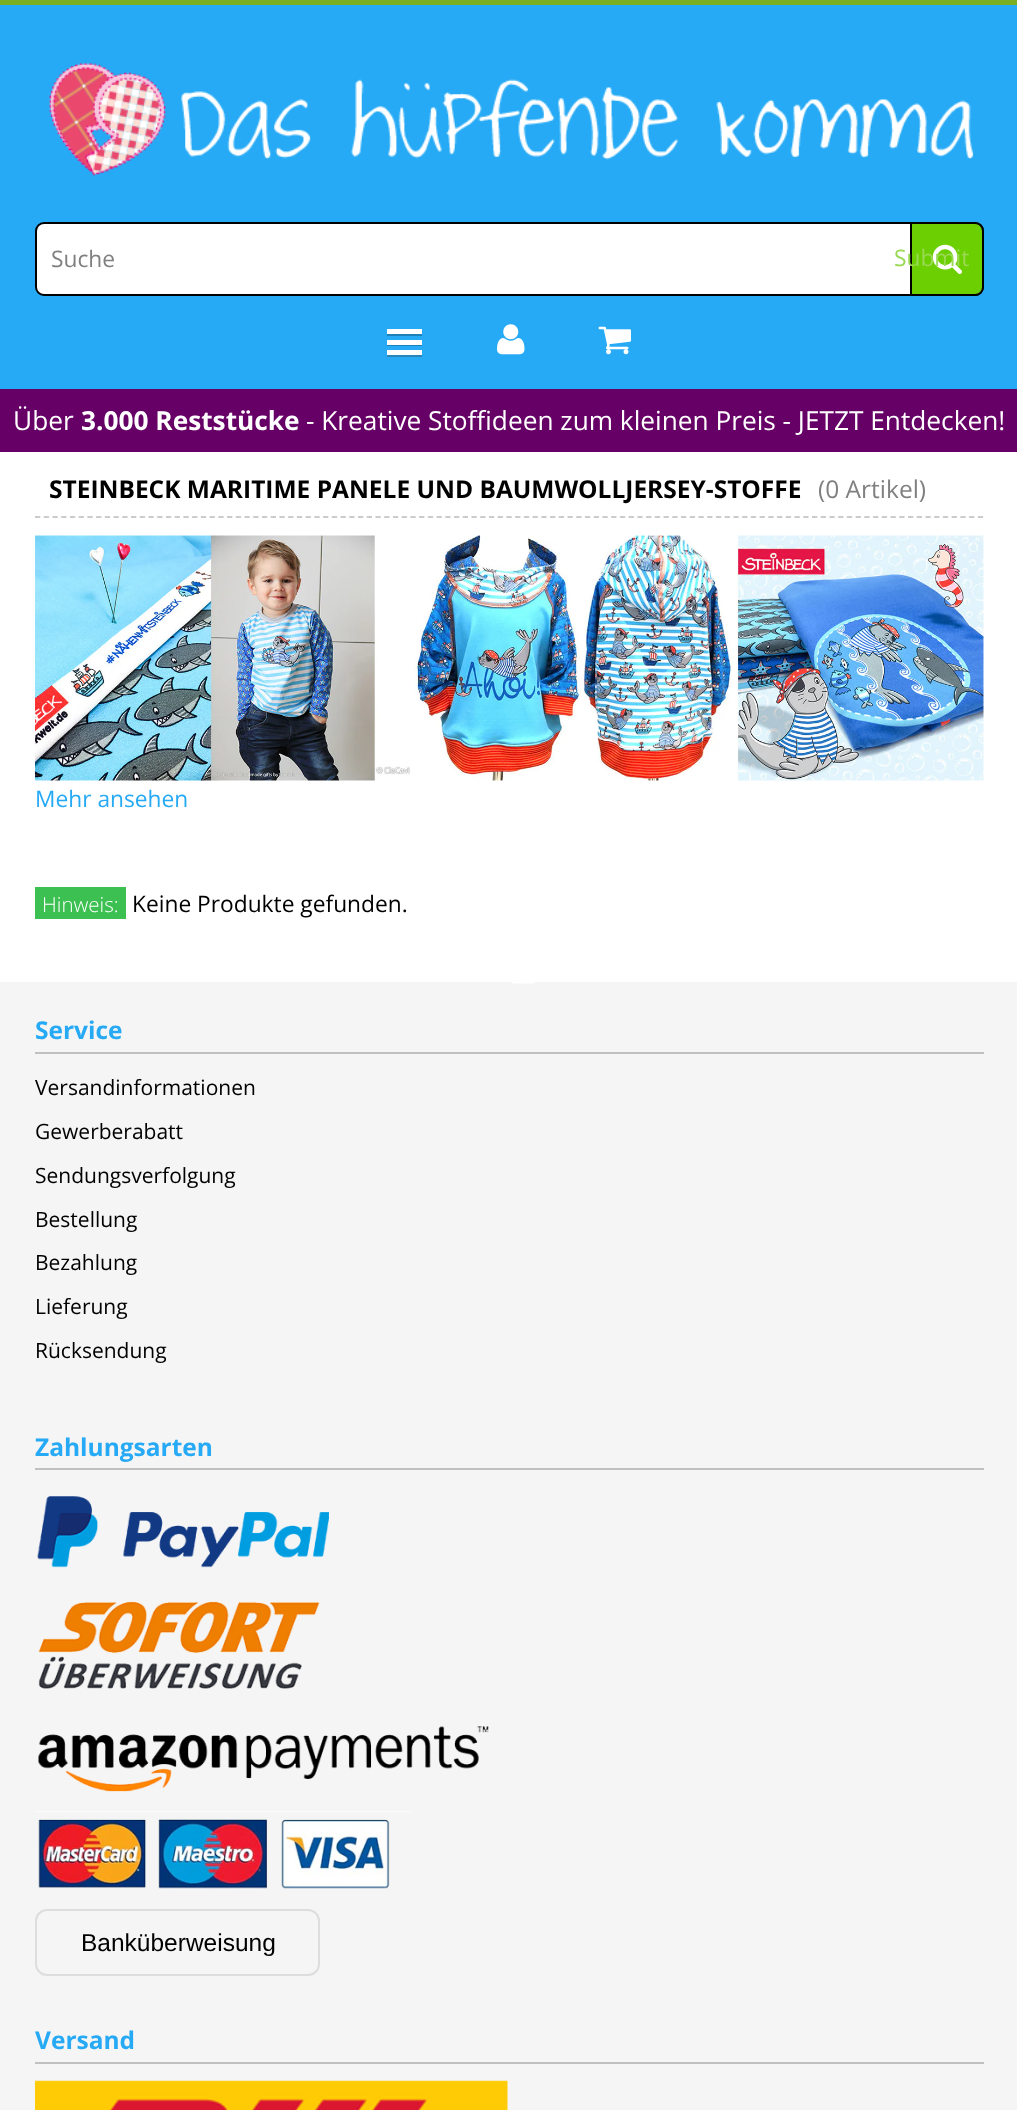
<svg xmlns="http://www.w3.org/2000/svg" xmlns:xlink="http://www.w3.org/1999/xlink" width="1017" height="2110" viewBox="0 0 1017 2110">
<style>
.cls-1{font:22.75px Open Sans;fill:#808080}
.cls-2{font:22.75px Open Sans;fill:#99d954}
.cls-3{font:26.25px Open Sans;fill:#ffffff}
.cls-4{font:bold 26.25px Open Sans;fill:#ffffff}
.cls-5{font:bold 24.5px Open Sans;fill:#000000}
.cls-6{font:24.5px Open Sans;fill:#808080}
.cls-7{font:22.75px Open Sans;fill:#27aaf5}
.cls-8{font:300 20.5px Open Sans;fill:#ffffff}
.cls-9{font:22.75px Open Sans;fill:#000000}
.cls-10{font:bold 24.5px Open Sans;fill:#27aaf5}
.cls-11{font:21px Open Sans;fill:#000000}
.cls-12{font:24.5px Liberation Sans;fill:#000000}
</style>
<rect width="100%" height="100%" fill="#ffffff"/>
<rect fill="#27aaf5" x="0" y="5" width="1017" height="384"/>
<rect fill="#7bae23" x="0" y="0" width="1017" height="5"/>
<image xlink:href="image0.png" x="49" y="62" width="925" height="114"/>
<rect fill="#ffffff" stroke="#000000" stroke-width="2" x="36" y="223" width="947" height="72" rx="8"/>
<path fill="#6ccf01" stroke="#000000" stroke-width="2" d="M911 223H975C979.5 223 983 226.5 983 231V287C983 291.5 979.5 295 975 295H911Z"/>
<image xlink:href="image1.png" x="932" y="244" width="30" height="30"/>
<path fill="#1d80b8" d="M387 334V336H422V331V334Z"/>
<rect fill="#ffffff" x="387" y="329" width="35" height="5"/>
<path fill="#1d80b8" d="M387 345V346H422V341V345Z"/>
<rect fill="#ffffff" x="387" y="340" width="35" height="5"/>
<path fill="#2984b9" d="M387 355V357H422V352V355Z"/>
<rect fill="#ffffff" x="387" y="350" width="35" height="5"/>
<image xlink:href="image2.png" x="497" y="324" width="28" height="31"/>
<image xlink:href="image3.png" x="598" y="326" width="33" height="29"/>
<rect fill="#660066" x="0" y="389" width="1017" height="63"/>
<path fill="none" stroke="#cccccc" stroke-width="1.8" stroke-dasharray="5.25 3.48" d="M35 517H983.5"/>
<image xlink:href="image4.png" x="35" y="535" width="949" height="246"/>
<rect fill="#3cc051" x="35" y="887" width="91" height="32"/>
<rect fill="#f5f5f5" x="0" y="982" width="1017" height="1128"/>
<path fill="#ffffff" d="M514.5 983.5H532C533.5 983.5 534.5 983 535.5 982L523 971L511 982C512 983 513 983.5 514.5 983.5Z"/>
<rect fill="#c0c0c0" x="35" y="1052" width="949" height="2"/>
<rect fill="#c0c0c0" x="35" y="1468" width="949" height="2"/>
<image xlink:href="image5.png" x="37" y="1496" width="292" height="72"/>
<image xlink:href="image6.png" x="38" y="1601" width="282" height="88"/>
<image xlink:href="image7.png" x="38" y="1726" width="451" height="66"/>
<image xlink:href="image8.png" x="35" y="1811" width="376" height="78"/>
<rect fill="none" stroke="#dddddd" stroke-width="2" x="36" y="1910" width="283" height="65" rx="11"/>
<rect fill="#c0c0c0" x="35" y="2062" width="949" height="2"/>
<image xlink:href="image9.png" x="35" y="2080" width="473" height="30"/>
<text class="cls-1" x="51" y="267">Suche</text>
<text class="cls-2" x="894" y="266">Submit</text>
<text class="cls-3" x="13" y="430">Über</text>
<text class="cls-4" x="81" y="430">3.000 Reststücke</text>
<text class="cls-3" x="306" y="430">- Kreative Stoffideen zum kleinen Preis - JETZT Entdecken!</text>
<text class="cls-5" x="49" y="498">STEINBECK MARITIME PANELE UND BAUMWOLLJERSEY-STOFFE</text>
<text class="cls-6" x="818" y="498">(0 Artikel)</text>
<text class="cls-7" x="35" y="807">Mehr ansehen</text>
<text class="cls-8" x="42" y="912">Hinweis:</text>
<text class="cls-9" x="132" y="912">Keine Produkte gefunden.</text>
<text class="cls-10" x="35" y="1039">Service</text>
<text class="cls-11" x="35" y="1095">Versandinformationen</text>
<text class="cls-11" x="35" y="1139">Gewerberabatt</text>
<text class="cls-11" x="35" y="1183">Sendungsverfolgung</text>
<text class="cls-11" x="35" y="1227">Bestellung</text>
<text class="cls-11" x="35" y="1270">Bezahlung</text>
<text class="cls-11" x="35" y="1314">Lieferung</text>
<text class="cls-11" x="35" y="1358">Rücksendung</text>
<text class="cls-10" x="35" y="1456">Zahlungsarten</text>
<text class="cls-12" x="81" y="1951">Banküberweisung</text>
<text class="cls-10" x="35" y="2049">Versand</text>
</svg>
